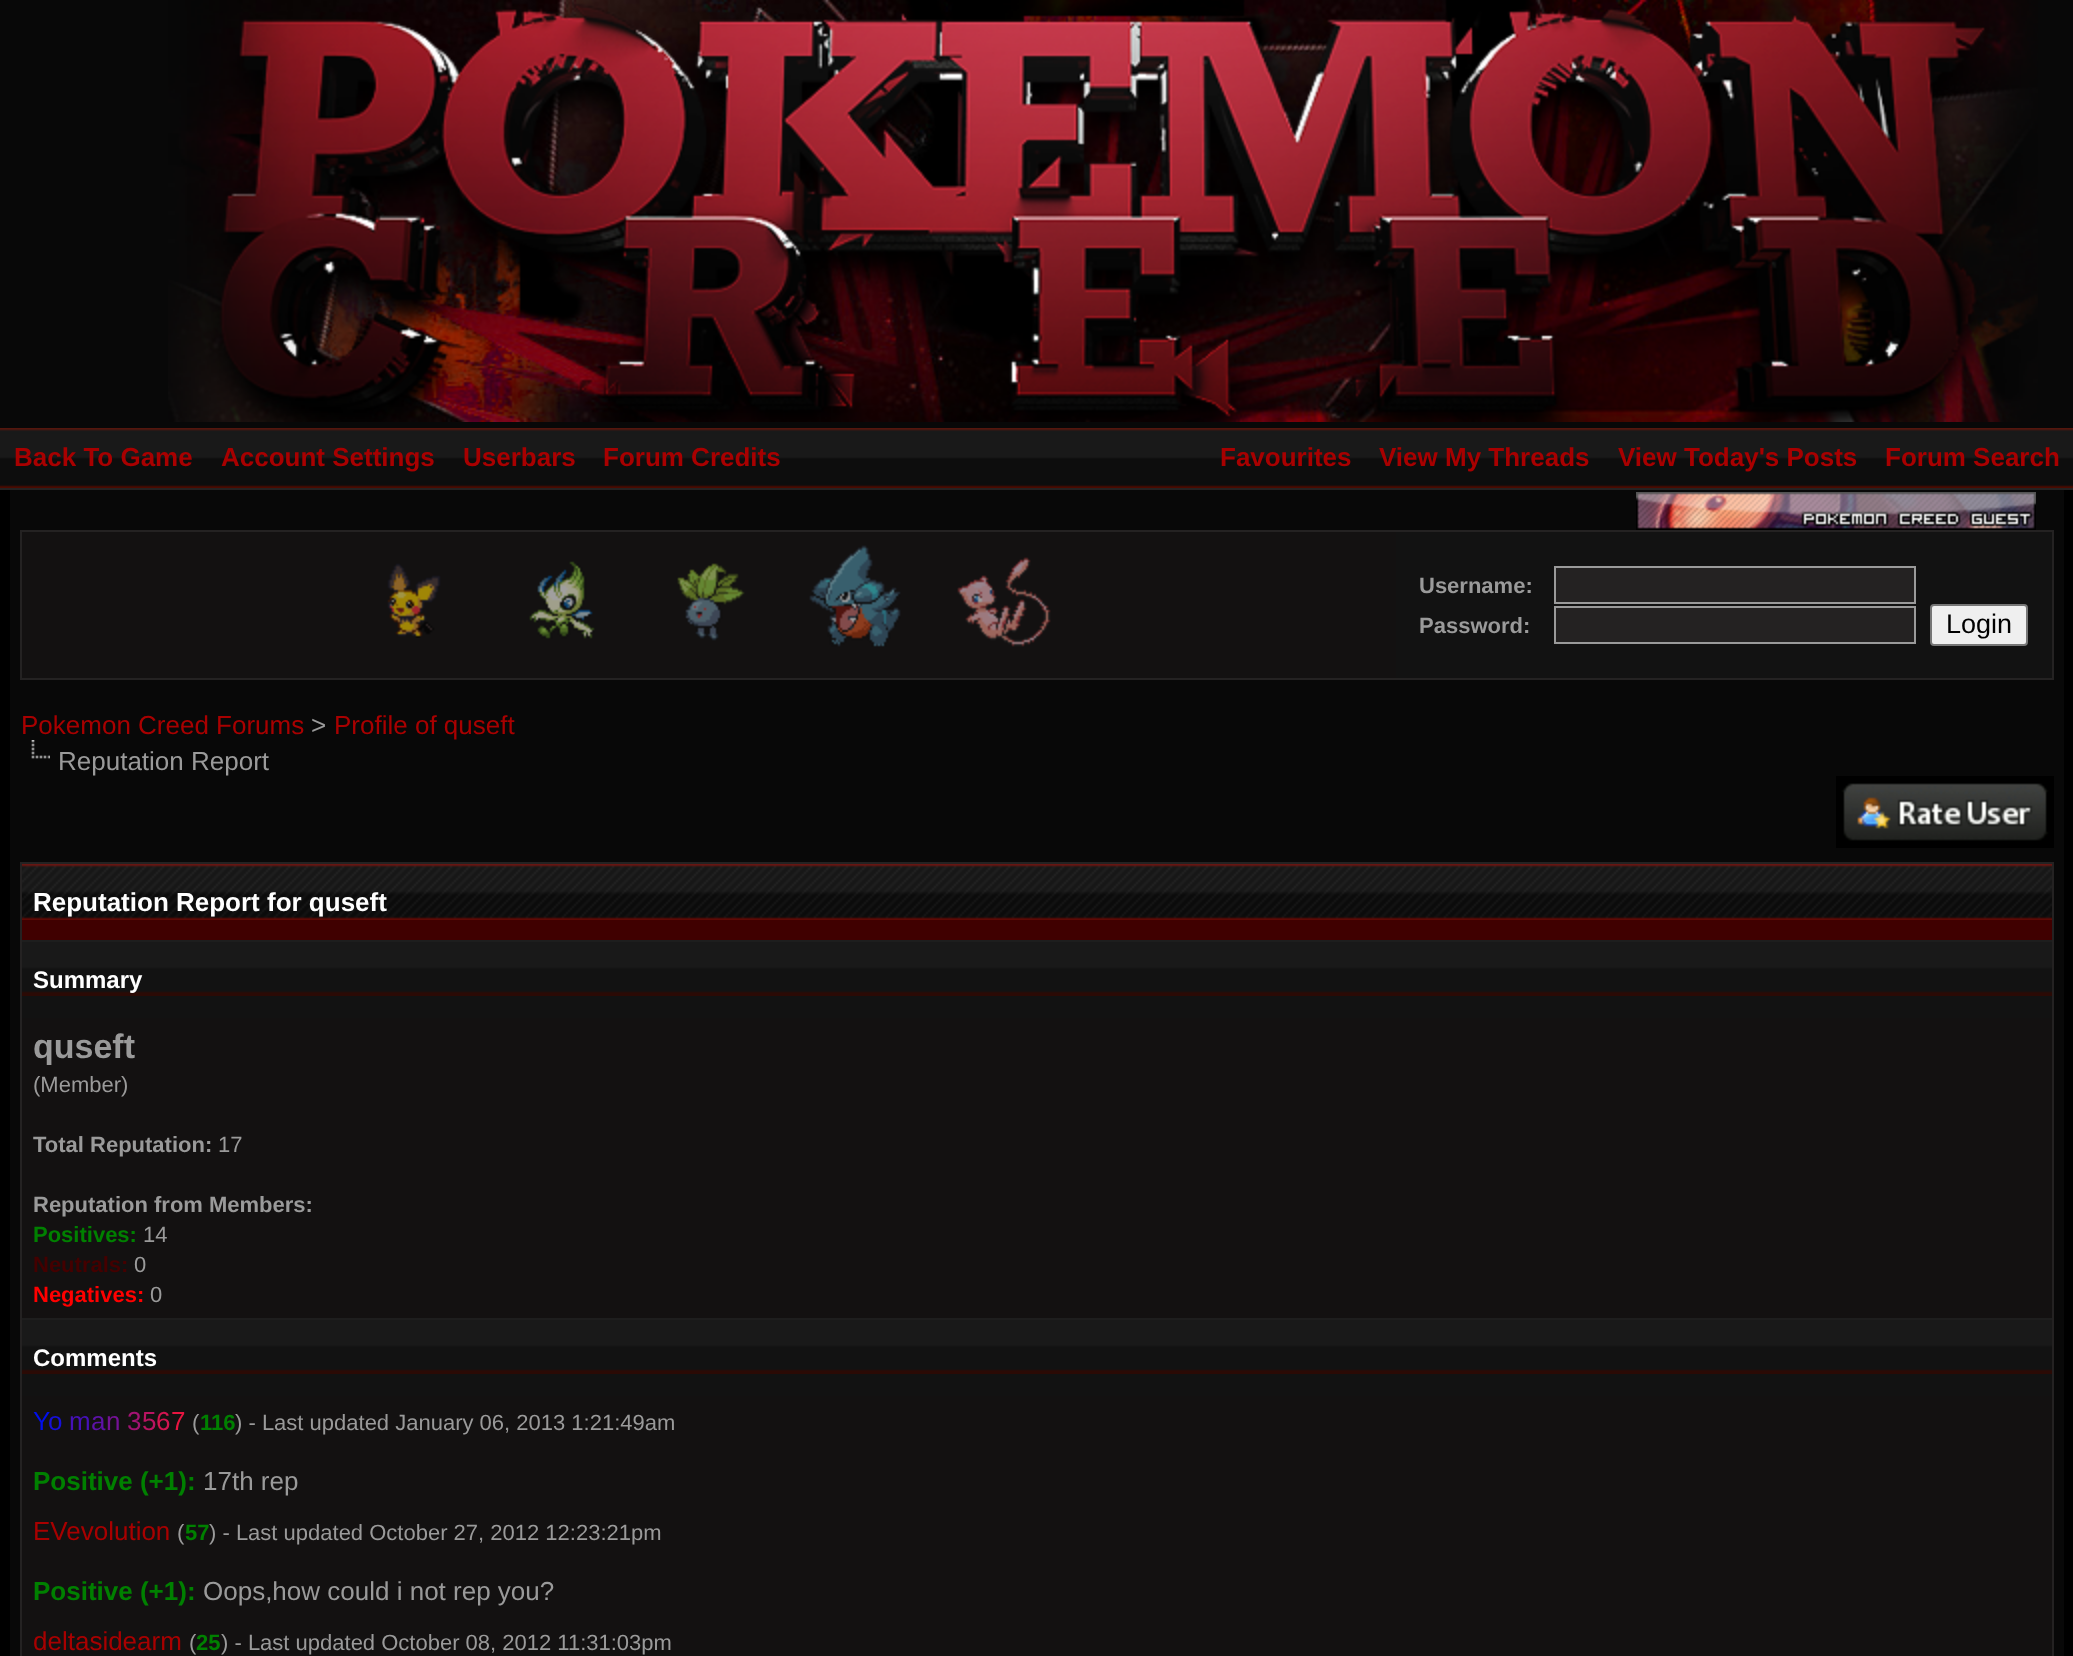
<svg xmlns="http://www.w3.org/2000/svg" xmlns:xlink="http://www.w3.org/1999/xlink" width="2073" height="1656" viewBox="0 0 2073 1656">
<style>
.cls-1{font:bold 26px Liberation Sans;fill:#a80000}
.cls-2{font:bold 22px Liberation Sans;fill:#9a9a9a}
.cls-3{font:27px Liberation Sans;fill:#000000}
.cls-4{font:26px Liberation Sans;fill:#a80000}
.cls-5{font:26px Liberation Sans;fill:#9a9a9a}
.cls-6{font:bold 26px Liberation Sans;fill:#ffffff}
.cls-7{font:bold 24px Liberation Sans;fill:#ffffff}
.cls-8{font:bold 34px Liberation Sans;fill:#9a9a9a}
.cls-9{font:22px Liberation Sans;fill:#9a9a9a}
.cls-10{font:bold 22px Liberation Sans;fill:#008000}
.cls-11{font:bold 22px Liberation Sans;fill:#440000}
.cls-12{font:bold 22px Liberation Sans;fill:#ff0000}
.cls-13{font:26px Liberation Sans;fill:#000feb}
.cls-14{font:26px Liberation Sans;fill:#1710da}
.cls-15{font:26px Liberation Sans;fill:#4611b8}
.cls-16{font:26px Liberation Sans;fill:#5d12a7}
.cls-17{font:26px Liberation Sans;fill:#741296}
.cls-18{font:26px Liberation Sans;fill:#a21373}
.cls-19{font:26px Liberation Sans;fill:#b91462}
.cls-20{font:26px Liberation Sans;fill:#d11551}
.cls-21{font:26px Liberation Sans;fill:#e81540}
.cls-22{font:bold 26px Liberation Sans;fill:#008000}
</style>
<rect width="100%" height="100%" fill="#000000"/>
<rect fill="#080808" x="0" y="0" width="2073" height="428"/>
<image xlink:href="image0.png" x="168" y="0" width="1870" height="422"/>
<image xlink:href="image1.png" x="0" y="428" width="2073" height="60"/>
<rect fill="#242222" x="0" y="488" width="2073" height="2"/>
<rect fill="#080808" x="10" y="490" width="2054" height="1166"/>
<image xlink:href="image2.png" x="1636" y="492" width="400" height="38"/>
<rect fill="none" stroke="#242222" stroke-width="2" x="21" y="531" width="2032" height="148"/>
<rect fill="#131111" x="22" y="532" width="1374" height="146"/>
<image xlink:href="image3.png" x="387" y="563" width="54" height="75"/>
<image xlink:href="image4.png" x="529" y="561" width="66" height="78"/>
<image xlink:href="image5.png" x="677" y="563" width="68" height="78"/>
<image xlink:href="image6.png" x="809" y="545" width="92" height="102"/>
<image xlink:href="image7.png" x="957" y="557" width="94" height="90"/>
<rect fill="#121212" x="1396" y="532" width="656" height="146"/>
<rect fill="#242222" stroke="#9a9a9a" stroke-width="2" x="1555" y="567" width="360" height="36"/>
<rect fill="#242222" stroke="#9a9a9a" stroke-width="2" x="1555" y="607" width="360" height="36"/>
<rect fill="#efefef" stroke="#767676" stroke-width="2" x="1931" y="605" width="96" height="40" rx="3"/>
<image xlink:href="image8.png" x="31" y="740" width="19" height="19"/>
<image xlink:href="image9.png" x="1836" y="776" width="218" height="72"/>
<rect fill="none" stroke="#242222" stroke-width="2" x="21" y="863" width="2032" height="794"/>
<rect fill="#400000" x="22" y="920" width="2030" height="20"/>
<image xlink:href="image10.png" x="22" y="864" width="2030" height="56"/>
<rect fill="#121212" x="22" y="996" width="2030" height="22"/>
<image xlink:href="image11.png" x="22" y="942" width="2030" height="54"/>
<rect fill="#1e1e1e" x="22" y="940" width="2030" height="2"/>
<rect fill="#131111" x="22" y="1018" width="2030" height="300"/>
<rect fill="#121212" x="22" y="1374" width="2030" height="22"/>
<image xlink:href="image11.png" x="22" y="1320" width="2030" height="54"/>
<rect fill="#1e1e1e" x="22" y="1318" width="2030" height="2"/>
<rect fill="#131111" x="22" y="1396" width="2030" height="260"/>
<text class="cls-1" x="14" y="466">Back To Game</text>
<text class="cls-1" x="221" y="466">Account Settings</text>
<text class="cls-1" x="463" y="466">Userbars</text>
<text class="cls-1" x="603" y="466">Forum Credits</text>
<text class="cls-1" x="1220" y="466">Favourites</text>
<text class="cls-1" x="1379" y="466">View My Threads</text>
<text class="cls-1" x="1618" y="466">View Today's Posts</text>
<text class="cls-1" x="1885" y="466">Forum Search</text>
<text class="cls-2"><tspan x="1419" y="593">Username:</tspan><tspan x="1419" y="633">Password:</tspan></text>
<text class="cls-3" x="1946" y="633">Login</text>
<text class="cls-4" x="21" y="734">Pokemon Creed Forums</text>
<text class="cls-5" x="311" y="734">&gt;</text>
<text class="cls-4" x="334" y="734">Profile of quseft</text>
<text class="cls-5" x="58" y="770">Reputation Report</text>
<text class="cls-6" x="33" y="911">Reputation Report for quseft</text>
<text class="cls-7" x="33" y="988">Summary</text>
<text class="cls-8" x="33" y="1058">quseft</text>
<text class="cls-9" x="33" y="1092">(Member)</text>
<text class="cls-2" x="33" y="1152">Total Reputation:</text>
<text class="cls-9" x="218" y="1152">17</text>
<text class="cls-2" x="33" y="1212">Reputation from Members:</text>
<text class="cls-10" x="33" y="1242">Positives:</text>
<text class="cls-9" x="143" y="1242">14</text>
<text class="cls-11" x="33" y="1272">Neutrals:</text>
<text class="cls-9" x="134" y="1272">0</text>
<text class="cls-12" x="33" y="1302">Negatives:</text>
<text class="cls-9" x="150" y="1302">0</text>
<text class="cls-7" x="33" y="1366">Comments</text>
<text class="cls-13" x="33" y="1430">Y</text>
<text class="cls-14" x="48" y="1430">o</text>
<text class="cls-15" x="69" y="1430">m</text>
<text class="cls-16" x="91" y="1430">a</text>
<text class="cls-17" x="106" y="1430">n</text>
<text class="cls-18" x="127" y="1430">3</text>
<text class="cls-19" x="142" y="1430">5</text>
<text class="cls-20" x="156" y="1430">6</text>
<text class="cls-21" x="171" y="1430">7</text>
<text class="cls-9" x="192" y="1430">(</text>
<text class="cls-10" x="200" y="1430">116</text>
<text class="cls-9" x="235" y="1430">) - Last updated January 06, 2013 1:21:49am</text>
<text class="cls-22" x="33" y="1490">Positive (+1):</text>
<text class="cls-5" x="203" y="1490">17th rep</text>
<text class="cls-4" x="33" y="1540">EVevolution</text>
<text class="cls-9" x="177" y="1540">(</text>
<text class="cls-10" x="185" y="1540">57</text>
<text class="cls-9" x="209" y="1540">) - Last updated October 27, 2012 12:23:21pm</text>
<text class="cls-22" x="33" y="1600">Positive (+1):</text>
<text class="cls-5" x="203" y="1600">Oops,how could i not rep you?</text>
<text class="cls-4" x="33" y="1650">deltasidearm</text>
<text class="cls-9" x="189" y="1650">(</text>
<text class="cls-10" x="196" y="1650">25</text>
<text class="cls-9" x="221" y="1650">) - Last updated October 08, 2012 11:31:03pm</text>
</svg>
